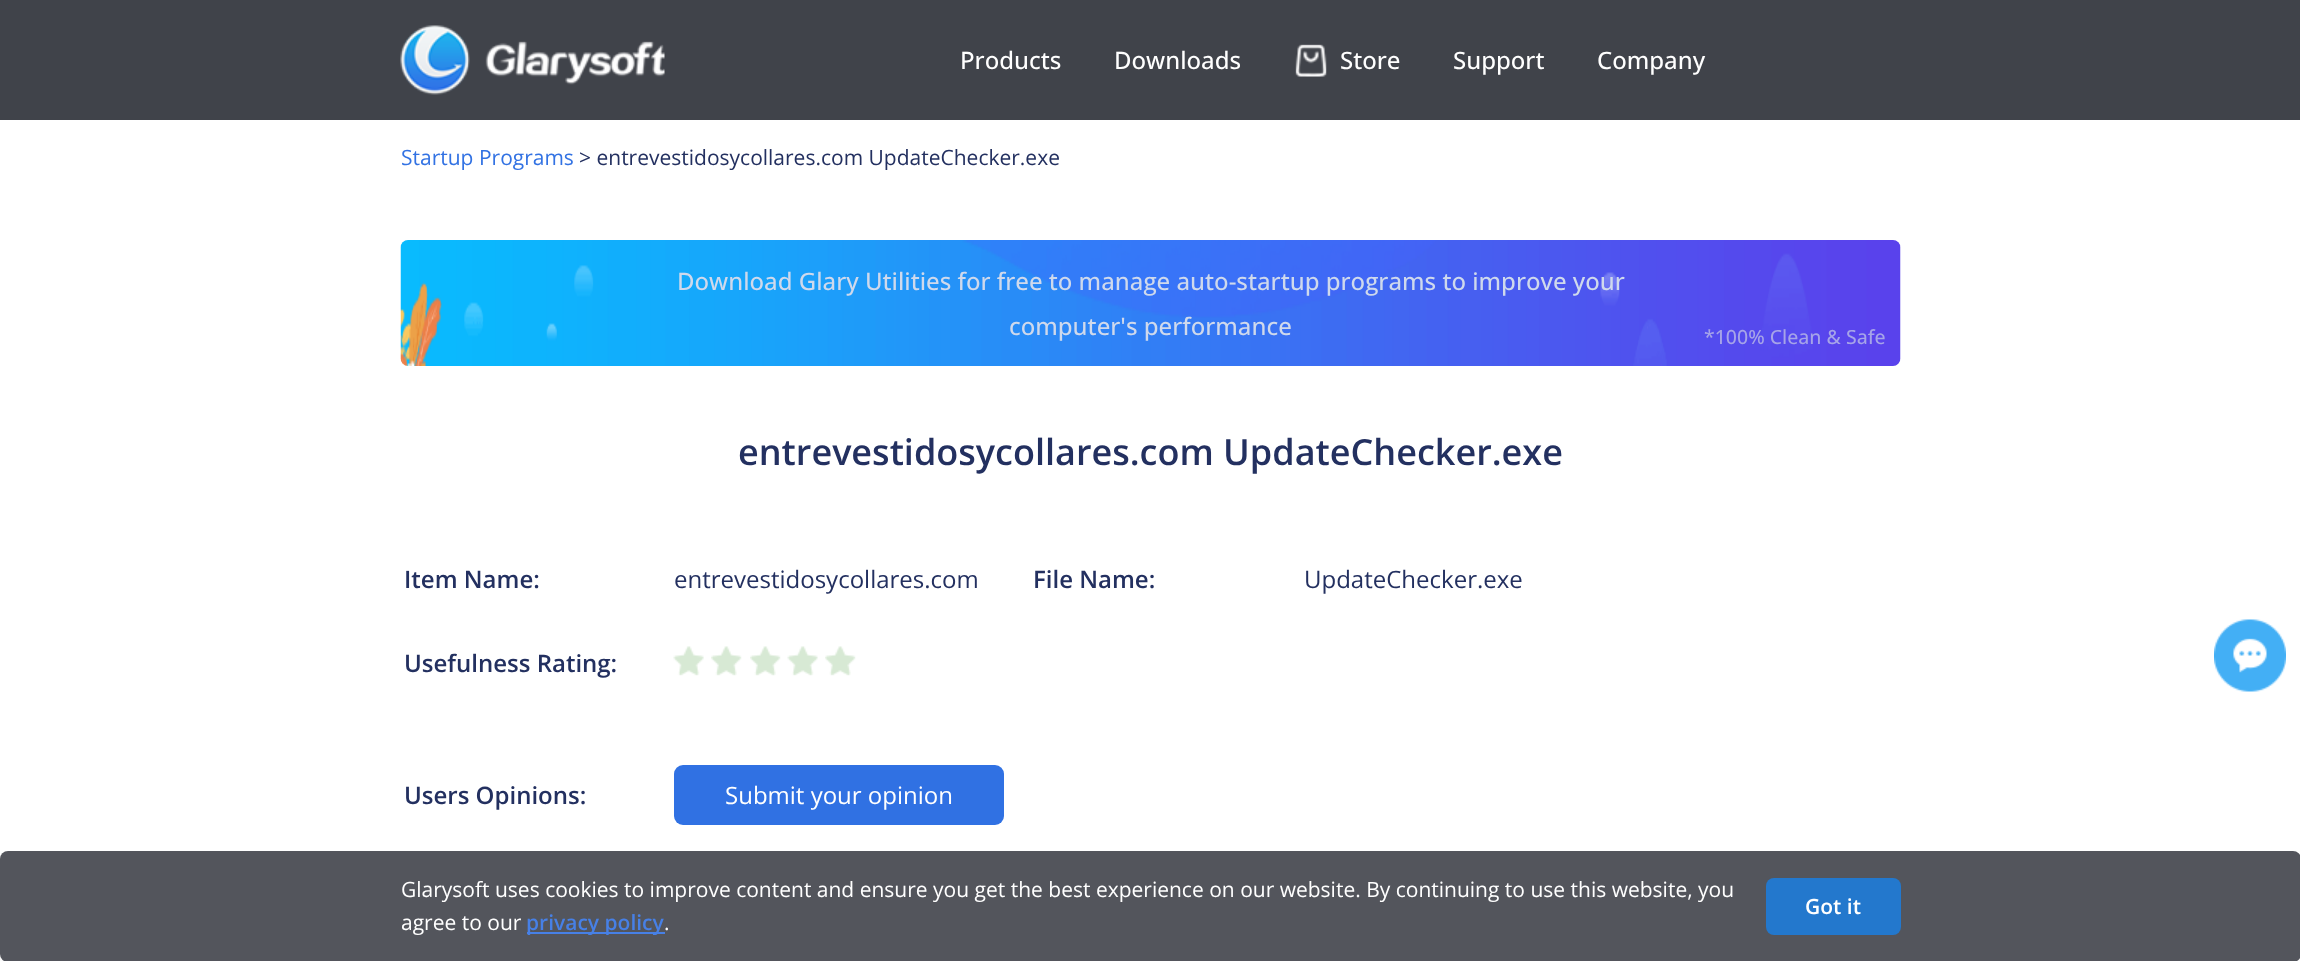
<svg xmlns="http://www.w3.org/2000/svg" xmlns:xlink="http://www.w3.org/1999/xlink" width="2300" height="961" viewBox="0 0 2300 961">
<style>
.cls-1{font:500 24px Open Sans;fill:#ffffff}
.cls-2{font:21px Open Sans;fill:#3272e3}
.cls-3{font:21px Open Sans;fill:#233060}
.cls-4{font:500 24px Open Sans;fill:#cfd9ec}
.cls-5{font:500 19.5px Open Sans;fill:#a6a4e8}
.cls-6{font:600 36px Open Sans;fill:#233060}
.cls-7{font:600 24px Open Sans;fill:#233060}
.cls-8{font:24px Open Sans;fill:#233060}
.cls-9{font:24px Open Sans;fill:#ffffff}
.cls-10{font:21px Open Sans;fill:#ffffff}
.cls-11{font:600 21px Open Sans;fill:#4780e6}
.cls-12{font:600 21px Open Sans;fill:#ffffff}
</style>
<rect width="100%" height="100%" fill="#ffffff"/>
<rect fill="#40434a" x="0" y="0" width="2300" height="120"/>
<image xlink:href="image0.png" x="400" y="25" width="265" height="70"/>
<image xlink:href="image1.png" x="1295" y="44" width="32" height="33"/>
<image xlink:href="image2.png" x="400" y="240" width="1501" height="126"/>
<image xlink:href="image3.png" x="673" y="646" width="31" height="30"/>
<image xlink:href="image4.png" x="711" y="646" width="31" height="30"/>
<image xlink:href="image5.png" x="750" y="646" width="31" height="30"/>
<image xlink:href="image6.png" x="787" y="646" width="31" height="30"/>
<image xlink:href="image7.png" x="825" y="646" width="31" height="30"/>
<rect fill="#3071e3" x="674" y="765" width="330" height="60" rx="9"/>
<image xlink:href="image8.png" x="2214" y="619" width="72" height="73"/>
<rect fill="#fafafa" x="0" y="947" width="2300" height="14"/>
<rect fill="#40434a" fill-opacity="0.9" x="0" y="851" width="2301" height="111" rx="8"/>
<rect fill="#4780e6" x="527" y="932" width="138" height="2"/>
<rect fill="#2378cd" x="1766" y="878" width="135" height="57" rx="8"/>
<text class="cls-1" x="960" y="69">Products</text>
<text class="cls-1" x="1114" y="69">Downloads</text>
<text class="cls-1" x="1340" y="69">Store</text>
<text class="cls-1" x="1453" y="69">Support</text>
<text class="cls-1" x="1597" y="69">Company</text>
<text class="cls-2" x="401" y="165">Startup Programs</text>
<text class="cls-3" x="579" y="165">&gt; entrevestidosycollares.com UpdateChecker.exe</text>
<text class="cls-4" x="677" y="290">Download Glary Utilities for free to manage auto-startup programs to improve your</text>
<text class="cls-4" x="1009" y="335">computer's performance</text>
<text class="cls-5" x="1704" y="344">*100% Clean &amp; Safe</text>
<text class="cls-6" x="738" y="465">entrevestidosycollares.com UpdateChecker.exe</text>
<text class="cls-7" x="404" y="588">Item Name:</text>
<text class="cls-8" x="674" y="588">entrevestidosycollares.com</text>
<text class="cls-7" x="1033" y="588">File Name:</text>
<text class="cls-8" x="1304" y="588">UpdateChecker.exe</text>
<text class="cls-7" x="404" y="672">Usefulness Rating:</text>
<text class="cls-7" x="404" y="804">Users Opinions:</text>
<text class="cls-9" x="725" y="804">Submit your opinion</text>
<text class="cls-10"><tspan x="401" y="897">Glarysoft uses cookies to improve content and ensure you get the best experience on our website. By continuing to use this website, you</tspan><tspan x="401" y="930">agree to our</tspan></text>
<text class="cls-11" x="526" y="930">privacy policy</text>
<text class="cls-10" x="664" y="930">.</text>
<text class="cls-12" x="1805" y="914">Got it</text>
</svg>
